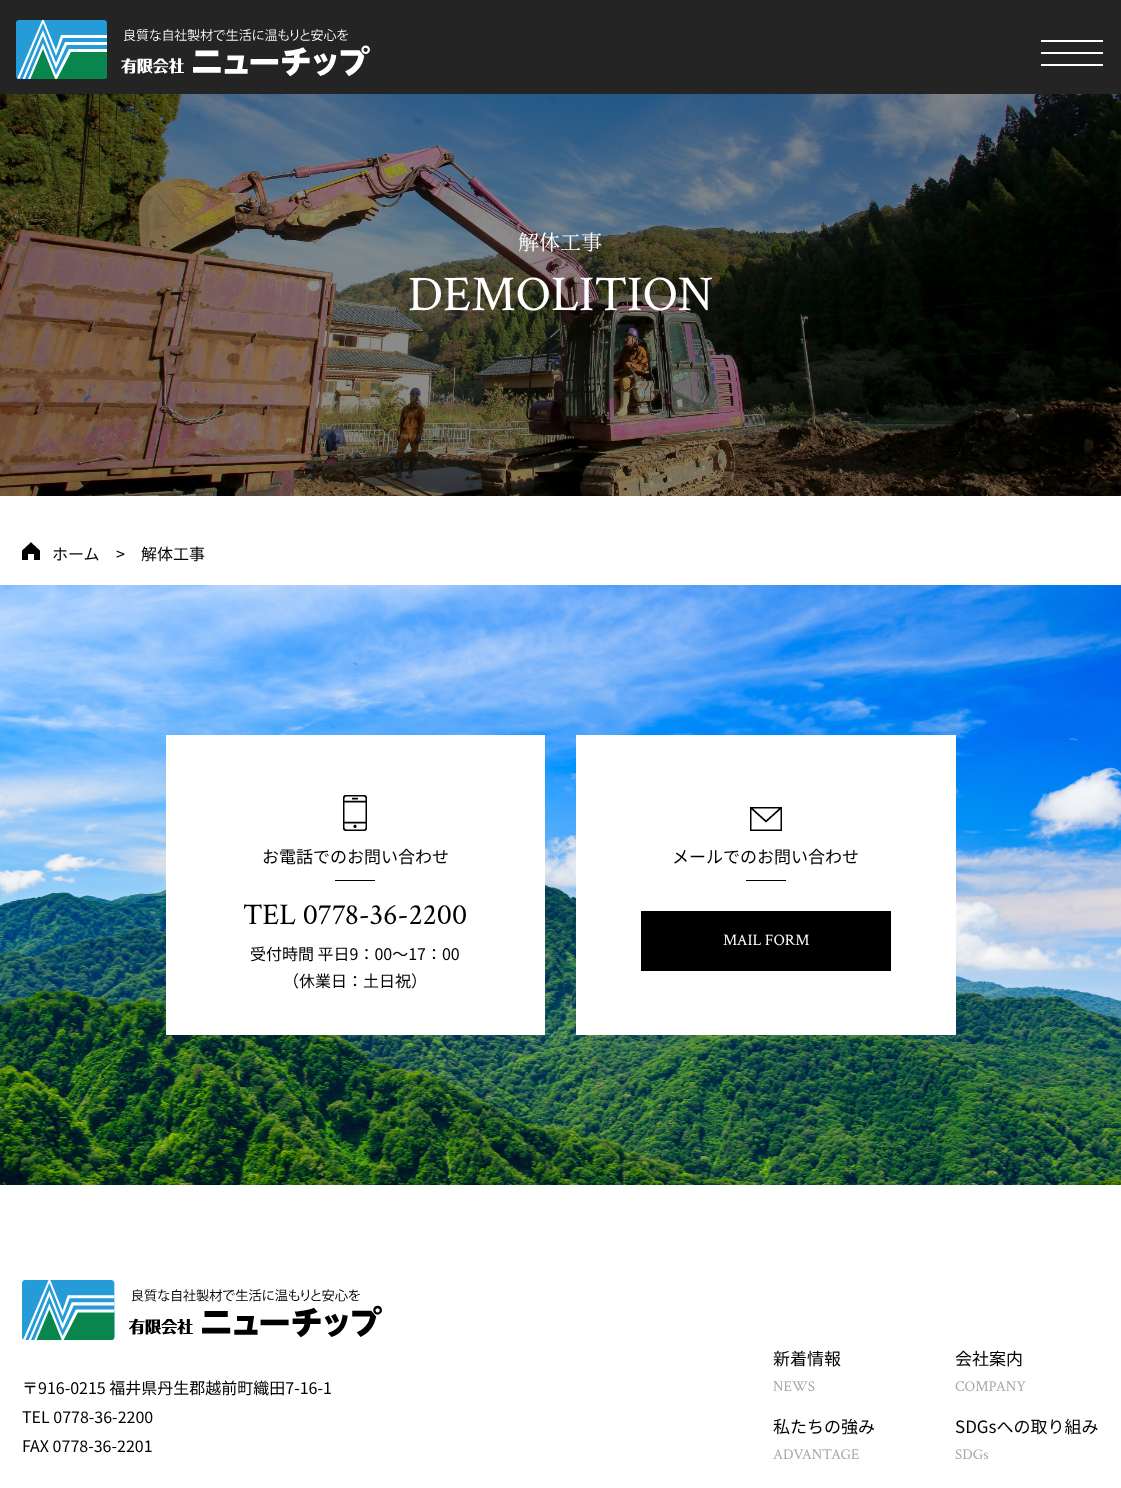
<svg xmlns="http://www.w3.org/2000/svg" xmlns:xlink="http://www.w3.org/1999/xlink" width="1121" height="1488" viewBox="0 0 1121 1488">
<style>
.cls-1{font:21px Noto Serif JP;fill:#ffffff}
.cls-2{font:50px Crimson Text;fill:#ffffff}
.cls-3{font:16px Noto Sans JP;fill:#000000}
.cls-4{font:17px Noto Sans JP;fill:#000000}
.cls-5{font:30px Crimson Text;fill:#000000}
.cls-6{font:16px Crimson Text;fill:#ffffff}
.cls-7{font:15px Crimson Text;fill:#a7a7a7}
</style>
<rect width="100%" height="100%" fill="#ffffff"/>
<rect fill="#242424" x="0" y="0" width="1121" height="94"/>
<image xlink:href="image0.png" x="16" y="20" width="354" height="59"/>
<rect fill="#ffffff" x="1041" y="40" width="62" height="2"/>
<rect fill="#ffffff" x="1041" y="52" width="62" height="2"/>
<rect fill="#ffffff" x="1041" y="64" width="62" height="2"/>
<image xlink:href="image1.png" x="0" y="94" width="1121" height="402"/>
<image xlink:href="image2.png" x="22" y="542" width="18" height="18"/>
<image xlink:href="image3.png" x="0" y="585" width="1121" height="600"/>
<rect fill="#ffffff" x="166" y="735" width="379" height="300"/>
<image xlink:href="image4.png" x="343" y="795" width="24" height="36"/>
<rect fill="#000000" x="335" y="880" width="40" height="1"/>
<rect fill="#ffffff" x="576" y="735" width="380" height="300"/>
<image xlink:href="image5.png" x="750" y="807" width="32" height="24"/>
<rect fill="#000000" x="746" y="880" width="40" height="1"/>
<rect fill="#000000" x="641" y="911" width="250" height="60"/>
<image xlink:href="image6.png" x="22" y="1280" width="360" height="60"/>
<text class="cls-1" x="518" y="250">解体工事</text>
<text class="cls-2" x="408" y="310">DEMOLITION</text>
<text class="cls-3" x="52" y="560">ホーム</text>
<text class="cls-3" x="116" y="560">&gt;</text>
<text class="cls-3" x="141" y="560">解体工事</text>
<text class="cls-4" x="262" y="863">お電話でのお問い合わせ</text>
<text class="cls-5" x="243" y="924">TEL 0778-36-2200</text>
<text class="cls-3" x="250" y="960">受付時間 平日9：00～17：00</text>
<text class="cls-3" x="283" y="987">（休業日：土日祝）</text>
<text class="cls-4" x="672" y="863">メールでのお問い合わせ</text>
<text class="cls-6" x="723" y="945">MAIL FORM</text>
<text class="cls-3"><tspan x="22" y="1394">〒916-0215 福井県丹生郡越前町織田7-16-1</tspan><tspan x="22" y="1423">TEL 0778-36-2200</tspan><tspan x="22" y="1452">FAX 0778-36-2201</tspan></text>
<text class="cls-4" x="773" y="1365">新着情報</text>
<text class="cls-7" x="773" y="1391">NEWS</text>
<text class="cls-4" x="773" y="1433">私たちの強み</text>
<text class="cls-7" x="773" y="1459">ADVANTAGE</text>
<text class="cls-4" x="955" y="1365">会社案内</text>
<text class="cls-7" x="955" y="1391">COMPANY</text>
<text class="cls-4" x="955" y="1433">SDGsへの取り組み</text>
<text class="cls-7" x="955" y="1459">SDGs</text>
</svg>
